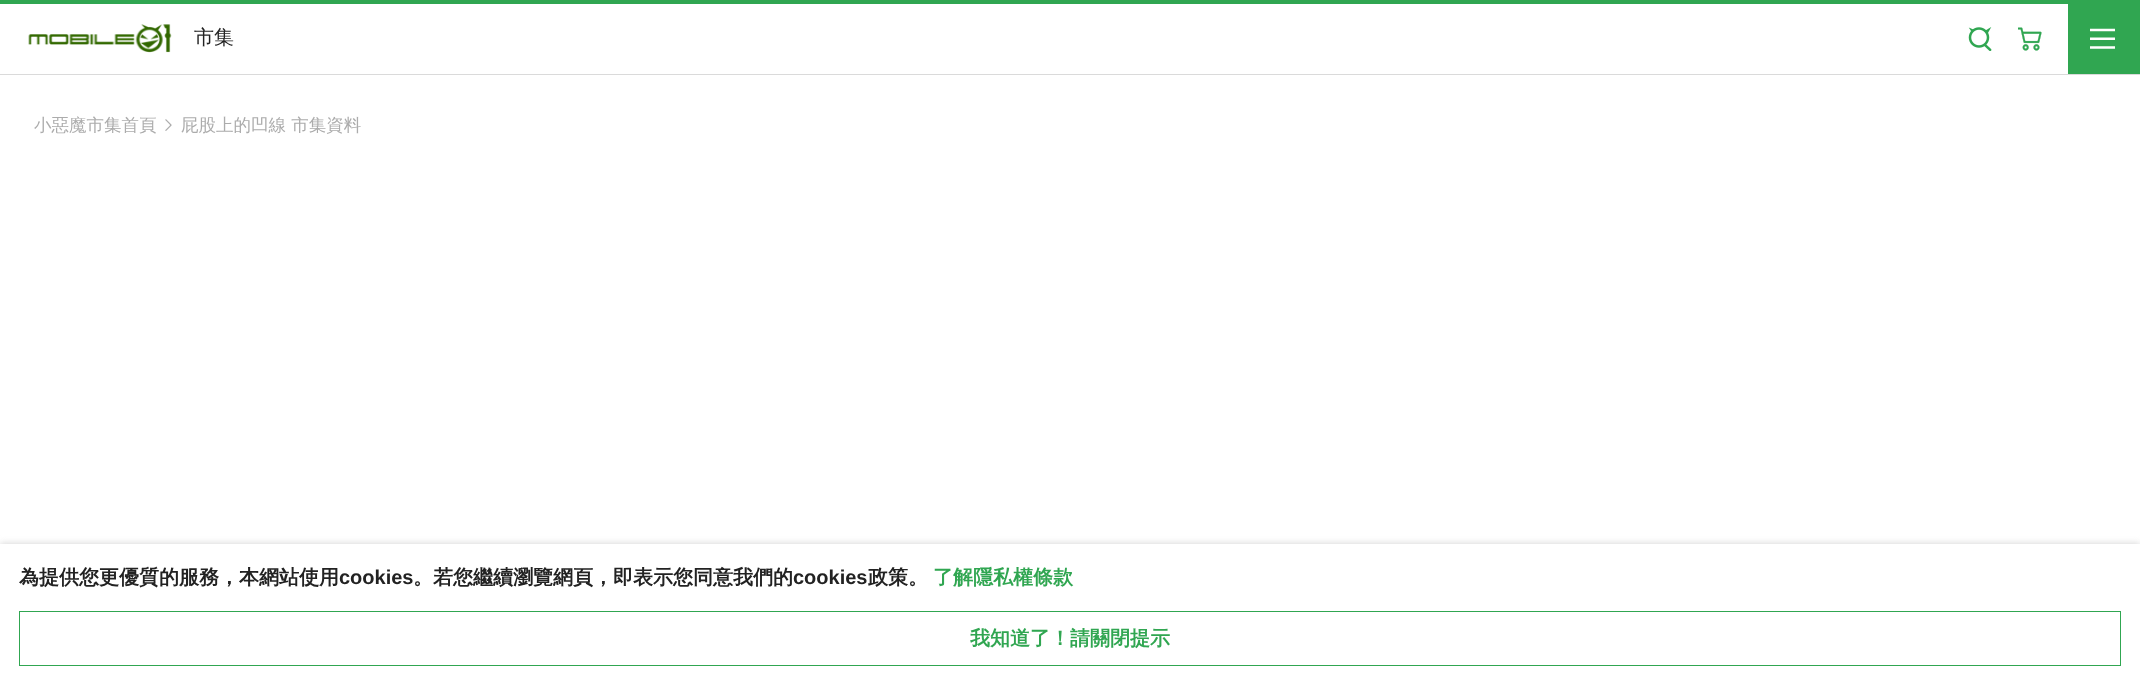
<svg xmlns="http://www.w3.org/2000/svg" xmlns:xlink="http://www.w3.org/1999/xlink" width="2140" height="684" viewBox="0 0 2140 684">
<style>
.cls-1{font:500 20px WenQuanYi Zen Hei;fill:#222222}
.cls-2{font:500 17.5px WenQuanYi Zen Hei;fill:#acacac}
.cls-3{font:bold 20px WenQuanYi Zen Hei;fill:#222222}
.cls-4{font:bold 20px Liberation Sans;fill:#222222}
.cls-5{font:bold 20px WenQuanYi Zen Hei;fill:#30a651}
</style>
<rect width="100%" height="100%" fill="#ffffff"/>
<rect fill="#30a651" x="0" y="0" width="2140" height="4"/>
<rect fill="#dadada" x="0" y="74" width="2140" height="1"/>
<image xlink:href="image0.png" x="28" y="24" width="144" height="29"/>
<image xlink:href="image1.png" x="1968" y="27" width="24" height="24"/>
<image xlink:href="image2.png" x="2018" y="27" width="24" height="24"/>
<rect fill="#30a651" x="2068" y="4" width="72" height="70"/>
<image xlink:href="image3.png" x="2090" y="28" width="25" height="21"/>
<image xlink:href="image4.png" x="165" y="119" width="7" height="12"/>
<rect fill="#dadada" filter="blur(3px)" x="0" y="543" width="2140" height="141"/>
<rect fill="#ffffff" x="0" y="544" width="2140" height="140"/>
<rect fill="none" stroke="#30a651" x="19.5" y="611.5" width="2101" height="54"/>
<text class="cls-1" x="194" y="44">市集</text>
<text class="cls-2" x="34" y="131">小惡魔市集首頁</text>
<text class="cls-2" x="181" y="131">屁股上的凹線 市集資料</text>
<text class="cls-3" x="19" y="584">為提供您更優質的服務，本網站使用</text>
<text class="cls-4" x="339" y="584">cookies</text>
<text class="cls-3" x="413" y="584">。若您繼續瀏覽網頁，即表示您同意我們的</text>
<text class="cls-4" x="793" y="584">cookies</text>
<text class="cls-3" x="868" y="584">政策。</text>
<text class="cls-5" x="933" y="584">了解隱私權條款</text>
<text class="cls-5" x="970" y="645">我知道了！請關閉提示</text>
</svg>
